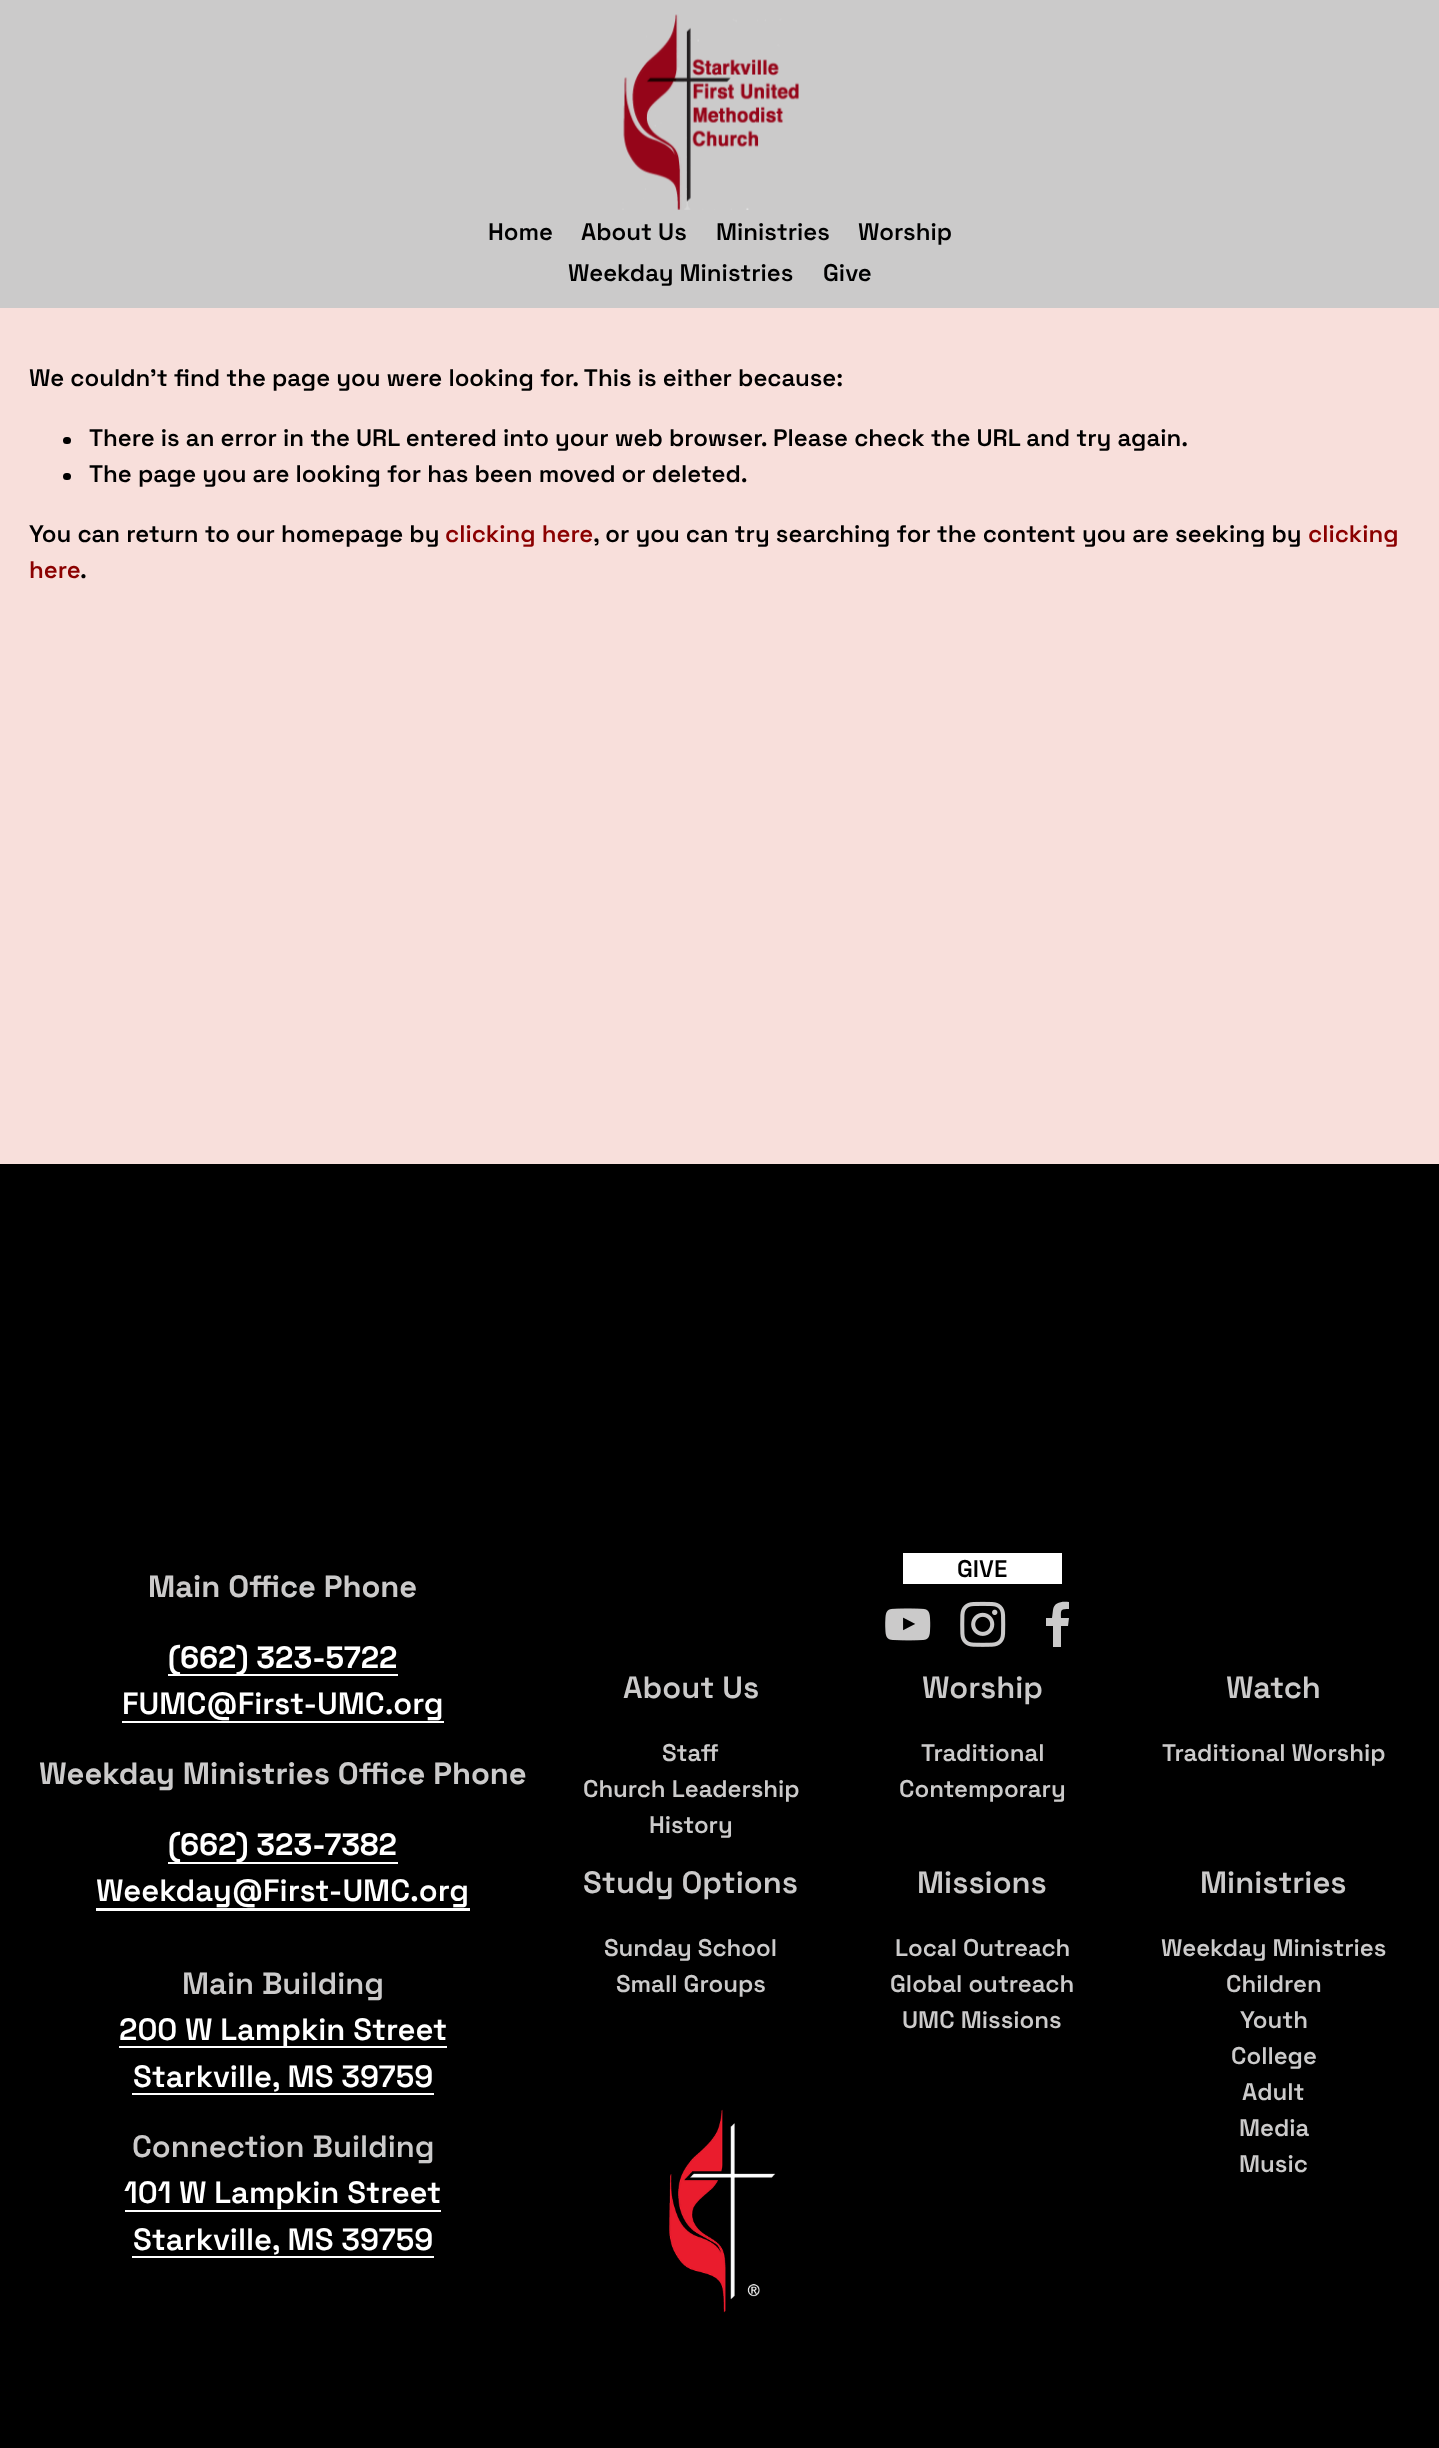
<svg xmlns="http://www.w3.org/2000/svg" xmlns:xlink="http://www.w3.org/1999/xlink" width="1439" height="2448" viewBox="0 0 1439 2448">
<style>
.cls-1{font:600 24px Space Grotesk;fill:#000000}
.cls-2{font:600 24px Space Grotesk;fill:#8b0000}
.cls-3{font:bold 30.9px Space Grotesk;fill:#cbcaca}
.cls-4{font:bold 30.9px Space Grotesk;fill:#ffffff}
.cls-5{font:600 30.9px Space Grotesk;fill:#ffffff}
.cls-6{font:600 30.9px Space Grotesk;fill:#cbcaca}
.cls-7{font:600 24px Space Grotesk;fill:#cbcaca}
</style>
<rect width="100%" height="100%" fill="#f8dfdb"/>
<rect fill="#cbcaca" x="0" y="0" width="1439" height="308"/>
<image xlink:href="image0.png" x="622" y="14" width="177" height="196"/>
<rect fill="#000000" x="63" y="437" width="8" height="7" rx="3.5"/>
<rect fill="#000000" x="63" y="473" width="8" height="7" rx="3.5"/>
<rect fill="#000000" x="0" y="1164" width="1439" height="1284"/>
<rect fill="#ffffff" x="903" y="1553" width="159" height="31"/>
<rect fill="#ffffff" x="168" y="1674" width="230" height="2"/>
<rect fill="#ffffff" x="122" y="1721" width="322" height="2"/>
<rect fill="#ffffff" x="168" y="1862" width="230" height="2"/>
<rect fill="#ffffff" x="96" y="1908" width="374" height="3"/>
<rect fill="#ffffff" x="119" y="2046" width="328" height="2"/>
<rect fill="#ffffff" x="132" y="2093" width="302" height="2"/>
<rect fill="#ffffff" x="125" y="2210" width="316" height="2"/>
<rect fill="#ffffff" x="132" y="2256" width="302" height="2"/>
<image xlink:href="image1.png" x="885" y="1608" width="46" height="33"/>
<image xlink:href="image2.png" x="960" y="1601" width="46" height="46"/>
<path fill="#cbcaca" d="M1061 1647V1626H1068L1069 1618H1061C1061 1610 1060 1609 1069 1609V1602C1062 1601 1054 1602 1053 1610L1052 1618H1046V1626H1053V1647Z"/>
<image xlink:href="image3.png" x="669" y="2109" width="107" height="204"/>
<text class="cls-1" x="488" y="240">Home</text>
<text class="cls-1" x="581" y="240">About Us</text>
<text class="cls-1" x="716" y="240">Ministries</text>
<text class="cls-1" x="858" y="240">Worship</text>
<text class="cls-1" x="568" y="281">Weekday Ministries</text>
<text class="cls-1" x="823" y="281">Give</text>
<text class="cls-1" x="29" y="386">We couldn't find the page you were looking for. This is either because:</text>
<text class="cls-1"><tspan x="89" y="446">There is an error in the URL entered into your web browser. Please check the URL and try again.</tspan><tspan x="89" y="482">The page you are looking for has been moved or deleted.</tspan></text>
<text class="cls-1" x="29" y="542">You can return to our homepage by</text>
<text class="cls-2" x="445" y="542">clicking here</text>
<text class="cls-1" x="593" y="542">, or you can try searching for the content you are seeking by</text>
<text class="cls-2" x="1308" y="542">clicking</text>
<text class="cls-2" x="29" y="578">here</text>
<text class="cls-1" x="80" y="578">.</text>
<text class="cls-1" x="957" y="1577">GIVE</text>
<text class="cls-3" x="148" y="1597">Main Office Phone</text>
<text class="cls-4" x="168" y="1668">(662) 323-5722</text>
<text class="cls-5" x="122" y="1714">FUMC@First-UMC.org</text>
<text class="cls-3" x="39" y="1784">Weekday Ministries Office Phone</text>
<text class="cls-4" x="168" y="1855">(662) 323-7382</text>
<text class="cls-5" x="96" y="1901">Weekday@First-UMC.org</text>
<text class="cls-6" x="182" y="1994">Main Building</text>
<text class="cls-5" x="119" y="2040">200 W Lampkin Street</text>
<text class="cls-5" x="133" y="2087">Starkville, MS 39759</text>
<text class="cls-6" x="132" y="2157">Connection Building</text>
<text class="cls-5" x="124" y="2203">101 W Lampkin Street</text>
<text class="cls-5" x="133" y="2250">Starkville, MS 39759</text>
<text class="cls-6" x="623" y="1698">About Us</text>
<text class="cls-7" x="662" y="1761">Staff</text>
<text class="cls-7" x="583" y="1797">Church Leadership</text>
<text class="cls-7" x="649" y="1833">History</text>
<text class="cls-6" x="922" y="1698">Worship</text>
<text class="cls-7" x="921" y="1761">Traditional</text>
<text class="cls-7" x="899" y="1797">Contemporary</text>
<text class="cls-6" x="1226" y="1698">Watch</text>
<text class="cls-7" x="1162" y="1761">Traditional Worship</text>
<text class="cls-6" x="583" y="1893">Study Options</text>
<text class="cls-7" x="604" y="1956">Sunday School</text>
<text class="cls-7" x="616" y="1992">Small Groups</text>
<text class="cls-6" x="917" y="1893">Missions</text>
<text class="cls-7" x="895" y="1956">Local Outreach</text>
<text class="cls-7" x="890" y="1992">Global outreach</text>
<text class="cls-7" x="902" y="2028">UMC Missions</text>
<text class="cls-6" x="1200" y="1893">Ministries</text>
<text class="cls-7" x="1161" y="1956">Weekday Ministries</text>
<text class="cls-7" x="1226" y="1992">Children</text>
<text class="cls-7" x="1240" y="2028">Youth</text>
<text class="cls-7" x="1231" y="2064">College</text>
<text class="cls-7" x="1242" y="2100">Adult</text>
<text class="cls-7"><tspan x="1239" y="2136">Media</tspan><tspan x="1239" y="2172">Music</tspan></text>
</svg>
